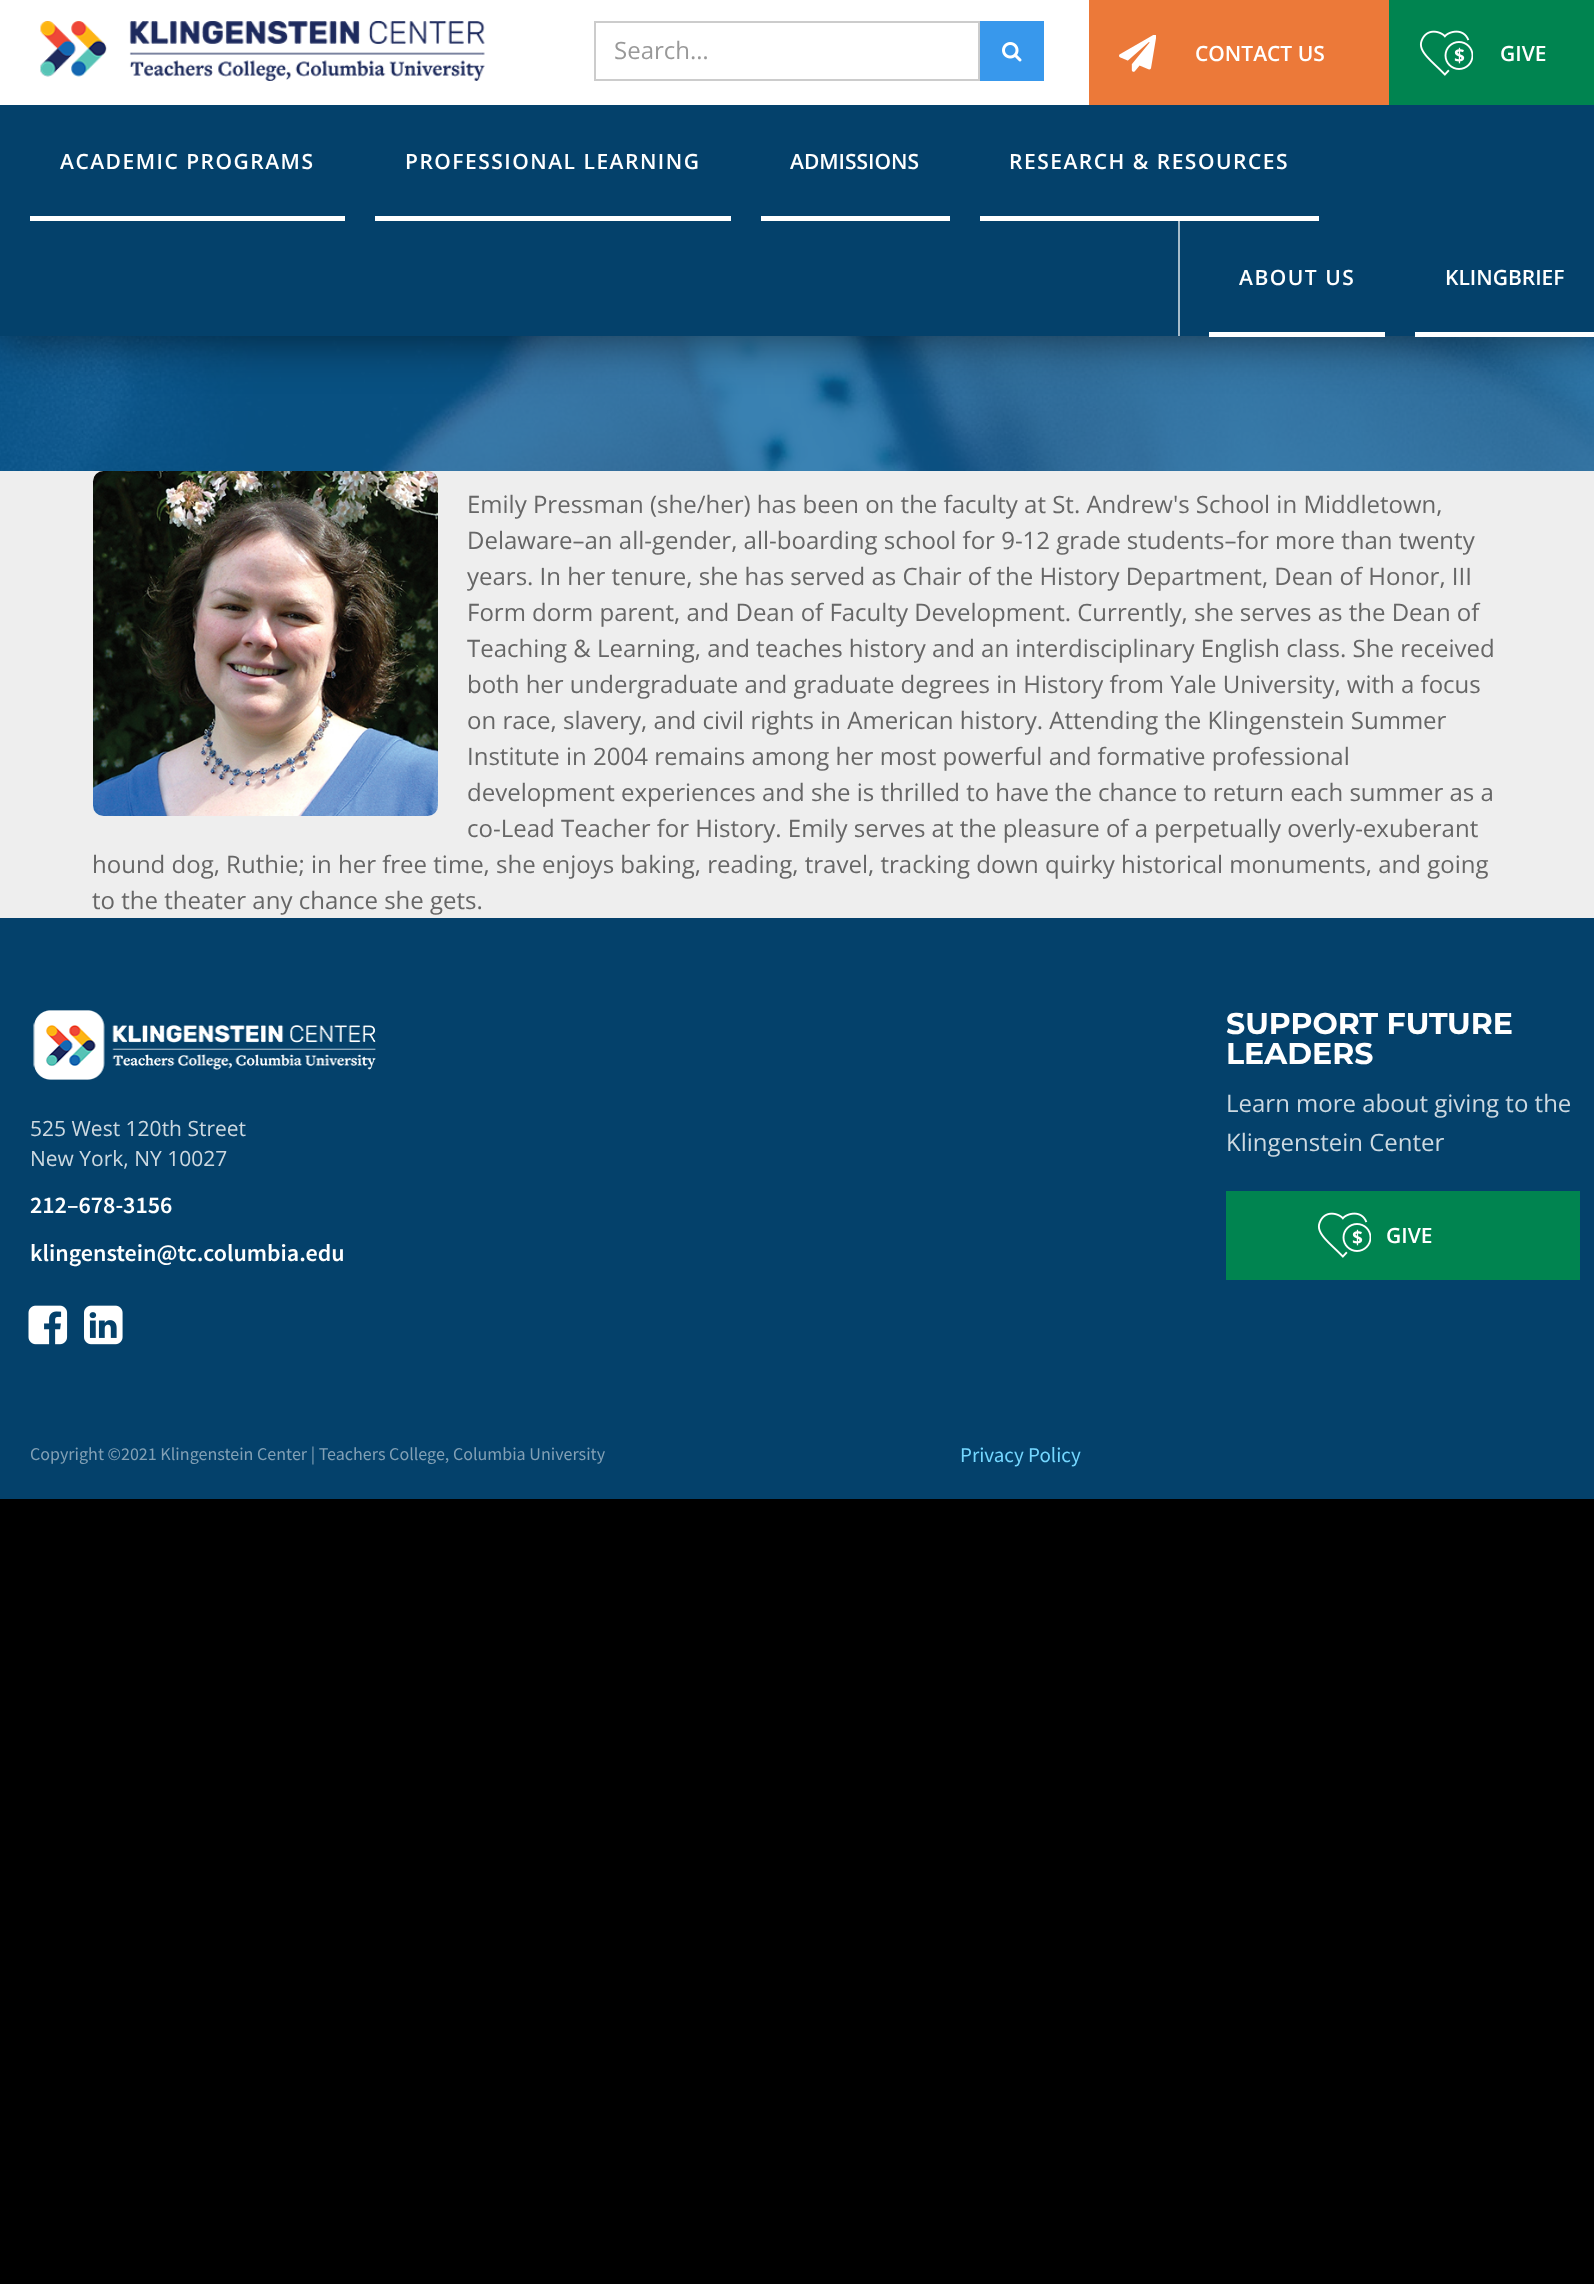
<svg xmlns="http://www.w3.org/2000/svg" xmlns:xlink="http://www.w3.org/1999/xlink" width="1594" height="2284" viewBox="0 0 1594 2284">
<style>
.cls-1{font:24px Open Sans;fill:#999999}
.cls-2{font:600 21px Open Sans;fill:#ffffff}
.cls-3{font:600 21px Open Sans;letter-spacing:1.5px;fill:#ffffff}
.cls-4{font:24px Open Sans;fill:#666666}
.cls-5{font:21px Open Sans;fill:#cdd9e1}
.cls-6{font:600 24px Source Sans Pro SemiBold;fill:#ffffff}
.cls-7{font:bold 30px Montserrat;fill:#ffffff}
.cls-8{font:24px Open Sans;fill:#cdd9e1}
.cls-9{font:18px Source Sans Pro;fill:#82a0b5}
.cls-10{font:21px Source Sans Pro;fill:#74d7ff}
</style>
<rect width="100%" height="100%" fill="#000000"/>
<image xlink:href="image4.png" x="0" y="336" width="1594" height="135"/>
<rect fill="#000000" fill-opacity="0.6" filter="blur(25px)" x="0" y="0" width="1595" height="336"/>
<rect fill="#ffffff" x="0" y="0" width="1089" height="105"/>
<image xlink:href="image0.png" x="40" y="21" width="445" height="60"/>
<rect fill="none" stroke="#cccccc" stroke-width="2" x="595" y="22" width="384" height="58"/>
<rect fill="#3898ec" x="980" y="21" width="64" height="60"/>
<image xlink:href="image1.png" x="1002" y="42" width="20" height="20"/>
<rect fill="#ec7939" x="1089" y="0" width="300" height="105"/>
<image xlink:href="image2.png" x="1119" y="35" width="37" height="37"/>
<rect fill="#008450" x="1389" y="0" width="205" height="105"/>
<image xlink:href="image3.png" x="1419" y="30" width="54" height="46"/>
<rect fill="#04416b" x="0" y="105" width="1594" height="231"/>
<rect fill="#ffffff" x="30" y="216" width="315" height="5"/>
<rect fill="#ffffff" x="375" y="216" width="356" height="5"/>
<rect fill="#ffffff" x="761" y="216" width="189" height="5"/>
<rect fill="#ffffff" x="980" y="216" width="339" height="5"/>
<rect fill="#a5bbca" x="1178" y="221" width="2" height="115"/>
<rect fill="#ffffff" x="1209" y="332" width="176" height="5"/>
<rect fill="#ffffff" x="1415" y="332" width="179" height="5"/>
<rect fill="#eeeeee" x="0" y="471" width="1594" height="447"/>
<image xlink:href="image5.png" x="92" y="471" width="346" height="345"/>
<rect fill="#04416b" x="0" y="918" width="1594" height="581"/>
<image xlink:href="image6.png" x="33" y="1010" width="343" height="70"/>
<image xlink:href="image7.png" x="28" y="1305" width="40" height="40"/>
<image xlink:href="image8.png" x="84" y="1305" width="39" height="40"/>
<rect fill="#008450" x="1226" y="1191" width="354" height="89"/>
<image xlink:href="image3.png" x="1317" y="1212" width="54" height="46"/>
<text class="cls-1" x="614" y="59">Search…</text>
<text class="cls-2" x="1195" y="61">CONTACT US</text>
<text class="cls-2" x="1500" y="61">GIVE</text>
<text class="cls-3" x="60" y="169">ACADEMIC PROGRAMS</text>
<text class="cls-3" x="405" y="169">PROFESSIONAL LEARNING</text>
<text class="cls-2" x="790" y="169">ADMISSIONS</text>
<text class="cls-3" x="1009" y="169">RESEARCH &amp; RESOURCES</text>
<text class="cls-3" x="1239" y="285">ABOUT US</text>
<text class="cls-2" x="1445" y="285">KLINGBRIEF</text>
<text class="cls-4"><tspan x="467" y="513">Emily Pressman (she/her) has been on the faculty at St. Andrew's School in Middletown,</tspan><tspan x="467" y="549">Delaware–an all-gender, all-boarding school for 9-12 grade students–for more than twenty</tspan><tspan x="467" y="585">years. In her tenure, she has served as Chair of the History Department, Dean of Honor, III</tspan><tspan x="467" y="621">Form dorm parent, and Dean of Faculty Development. Currently, she serves as the Dean of</tspan><tspan x="467" y="657">Teaching &amp; Learning, and teaches history and an interdisciplinary English class. She received</tspan><tspan x="467" y="693">both her undergraduate and graduate degrees in History from Yale University, with a focus</tspan><tspan x="467" y="729">on race, slavery, and civil rights in American history. Attending the Klingenstein Summer</tspan><tspan x="467" y="765">Institute in 2004 remains among her most powerful and formative professional</tspan><tspan x="467" y="801">development experiences and she is thrilled to have the chance to return each summer as a</tspan><tspan x="467" y="837">co-Lead Teacher for History. Emily serves at the pleasure of a perpetually overly-exuberant</tspan></text>
<text class="cls-4"><tspan x="92" y="873">hound dog, Ruthie; in her free time, she enjoys baking, reading, travel, tracking down quirky historical monuments, and going</tspan><tspan x="92" y="909">to the theater any chance she gets.</tspan></text>
<text class="cls-5"><tspan x="30" y="1136">525 West 120th Street</tspan><tspan x="30" y="1166">New York, NY 10027</tspan></text>
<text class="cls-6" x="30" y="1213">212–678-3156</text>
<text class="cls-6" x="30" y="1261">klingenstein@tc.columbia.edu</text>
<text class="cls-7"><tspan x="1226" y="1034">SUPPORT FUTURE</tspan><tspan x="1226" y="1064">LEADERS</tspan></text>
<text class="cls-8"><tspan x="1226" y="1112">Learn more about giving to the</tspan><tspan x="1226" y="1151">Klingenstein Center</tspan></text>
<text class="cls-2" x="1386" y="1243">GIVE</text>
<text class="cls-9" x="30" y="1460">Copyright ©2021 Klingenstein Center | Teachers College, Columbia University</text>
<text class="cls-10" x="960" y="1462">Privacy Policy</text>
</svg>
